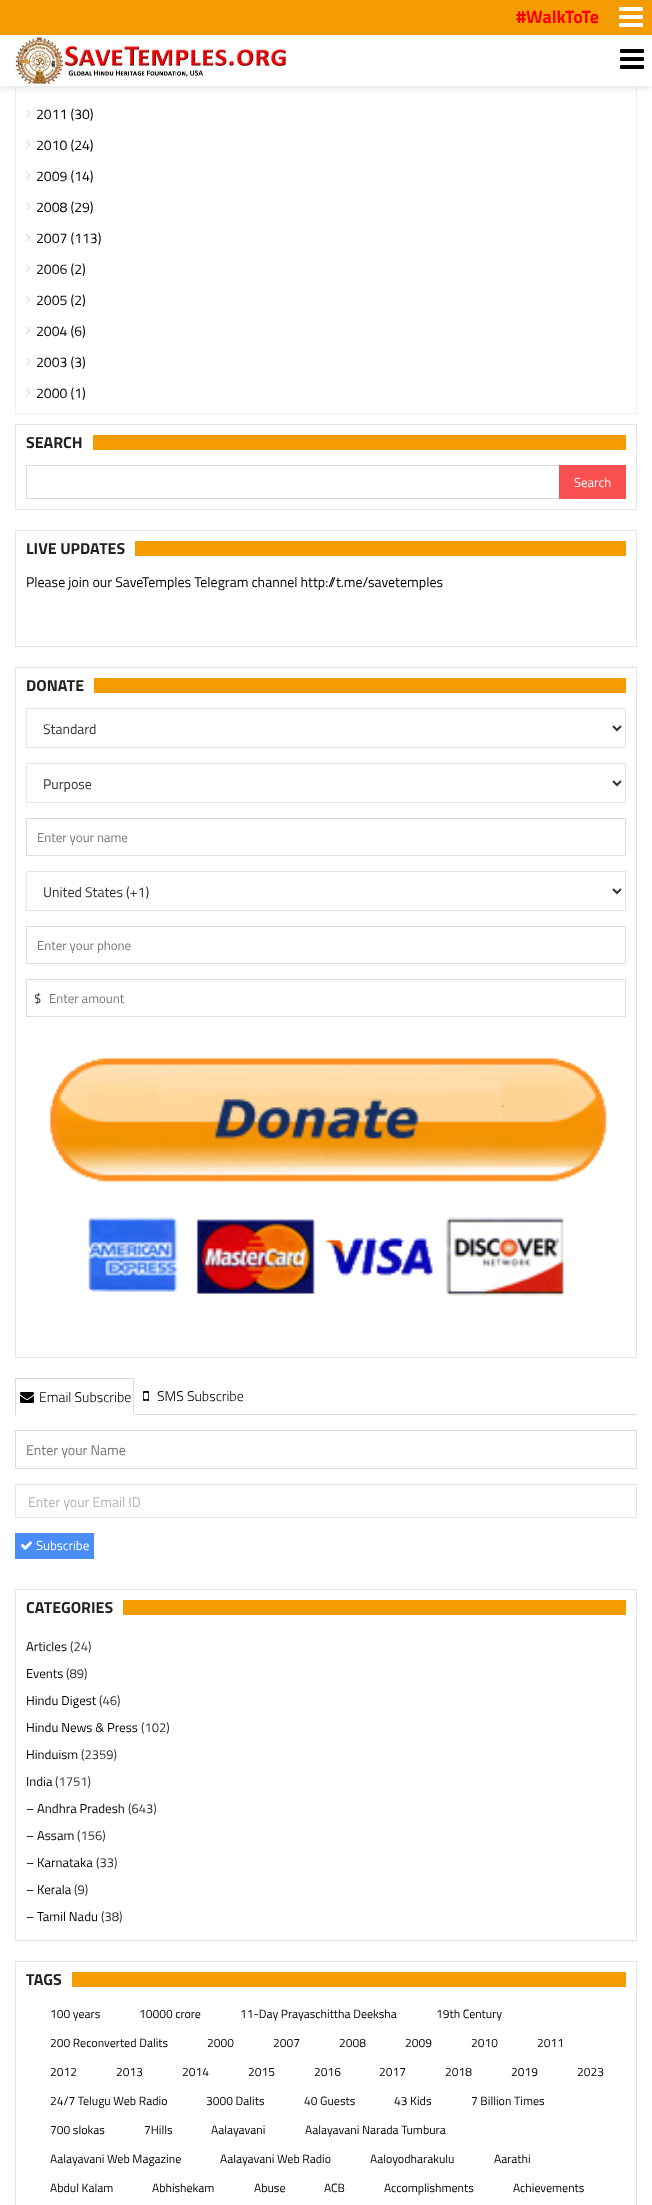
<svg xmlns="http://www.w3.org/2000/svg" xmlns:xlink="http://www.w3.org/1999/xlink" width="652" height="2205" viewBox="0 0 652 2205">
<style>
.cls-1{font:bold 18px Titillium Web;fill:#ff0000}
.cls-2{font:14px Titillium Web;fill:#000000}
.cls-3{font:bold 16px Titillium Web;fill:#222222}
.cls-4{font:13px Titillium Web;fill:#ffffff}
.cls-5{font:14px Titillium Web;fill:#333333}
.cls-6{font:13px Titillium Web;fill:#757575}
.cls-7{font:13px Titillium Web;fill:#333333}
.cls-8{font:300 14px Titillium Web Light;fill:#000000}
.cls-9{font:14px Titillium Web;fill:#757575}
.cls-10{font:14px Titillium Web;fill:#b3b3b3}
.cls-11{font:13px Titillium Web;fill:#000000}
.cls-12{font:12px Titillium Web;fill:#000000}
</style>
<rect width="100%" height="100%" fill="#ffffff"/>
<rect fill="none" stroke="#eeeeee" x="15.5" y="-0.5" width="621" height="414"/>
<image xlink:href="image3.png" x="26" y="86" width="2" height="1"/>
<rect fill="#222222" fill-opacity="0.2" filter="blur(5px)" x="0" y="0" width="652" height="86"/>
<rect fill="#ffffff" x="0" y="35" width="652" height="51"/>
<rect fill="#f59d00" x="0" y="0" width="652" height="35"/>
<image xlink:href="image0.png" x="619" y="7" width="24" height="20"/>
<image xlink:href="image1.png" x="15" y="36" width="272" height="48"/>
<image xlink:href="image2.png" x="620" y="49" width="24" height="20"/>
<image xlink:href="image4.png" x="26" y="109" width="5" height="9"/>
<image xlink:href="image4.png" x="26" y="140" width="5" height="9"/>
<image xlink:href="image4.png" x="26" y="171" width="5" height="9"/>
<image xlink:href="image4.png" x="26" y="202" width="5" height="9"/>
<image xlink:href="image4.png" x="26" y="233" width="5" height="9"/>
<image xlink:href="image4.png" x="26" y="264" width="5" height="9"/>
<image xlink:href="image4.png" x="26" y="295" width="5" height="9"/>
<image xlink:href="image4.png" x="26" y="326" width="5" height="9"/>
<image xlink:href="image4.png" x="26" y="357" width="5" height="9"/>
<image xlink:href="image4.png" x="26" y="388" width="5" height="9"/>
<rect fill="none" stroke="#e5e5e5" x="15.5" y="424.5" width="621" height="85"/>
<rect fill="#f59d00" x="93" y="435" width="533" height="15"/>
<rect fill="none" stroke="#dddddd" x="26.5" y="465.5" width="599" height="33"/>
<rect fill="#f85050" x="559" y="465" width="67" height="34"/>
<rect fill="none" stroke="#e5e5e5" x="15.5" y="530.5" width="621" height="116"/>
<rect fill="#f59d00" x="135" y="541" width="491" height="15"/>
<rect fill="none" stroke="#e5e5e5" x="15.5" y="667.5" width="621" height="690"/>
<rect fill="#f59d00" x="94" y="678" width="532" height="15"/>
<rect fill="none" stroke="#e5e5e5" x="26.5" y="708.5" width="599" height="39"/>
<path fill="none" stroke="#333333" stroke-width="2" d="M613 726L617 730L621 726"/>
<rect fill="none" stroke="#e5e5e5" x="26.5" y="763.5" width="599" height="39"/>
<path fill="none" stroke="#333333" stroke-width="2" d="M613 781L617 785L621 781"/>
<rect fill="none" stroke="#dddddd" x="26.5" y="818.5" width="599" height="37"/>
<rect fill="none" stroke="#e5e5e5" x="26.5" y="871.5" width="599" height="39"/>
<path fill="none" stroke="#333333" stroke-width="2" d="M613 889L617 893L621 889"/>
<rect fill="none" stroke="#dddddd" x="26.5" y="926.5" width="599" height="37"/>
<rect fill="none" stroke="#dddddd" x="26.5" y="979.5" width="599" height="37"/>
<image xlink:href="image5.png" x="49" y="1058" width="558" height="238"/>
<rect fill="#dddddd" x="134" y="1414" width="503" height="1"/>
<rect fill="#dddddd" x="15" y="1378" width="119" height="1"/>
<rect fill="#dddddd" x="133" y="1378" width="1" height="37"/>
<rect fill="#ffffff" x="133" y="1414" width="1" height="1"/>
<rect fill="#dddddd" x="15" y="1378" width="1" height="37"/>
<image xlink:href="image6.png" x="20" y="1392" width="14" height="11"/>
<image xlink:href="image7.png" x="143" y="1391" width="6" height="10"/>
<rect fill="none" stroke="#dddddd" x="15.5" y="1430.5" width="621" height="38"/>
<rect fill="none" stroke="#e5e5e5" x="15.5" y="1484.5" width="621" height="33"/>
<rect fill="#4b8df8" x="15" y="1533" width="79" height="26"/>
<image xlink:href="image8.png" x="20" y="1541" width="13" height="9"/>
<rect fill="none" stroke="#e5e5e5" x="15.5" y="1589.5" width="621" height="351"/>
<rect fill="#f59d00" x="123" y="1600" width="503" height="15"/>
<rect fill="none" stroke="#e5e5e5" x="15.5" y="1961.5" width="621" height="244"/>
<rect fill="#f59d00" x="72" y="1972" width="554" height="15"/>
<text class="cls-1" x="516" y="23">#WalkToTe</text>
<text class="cls-2" x="36" y="119">2011 (30)</text>
<text class="cls-2" x="36" y="150">2010 (24)</text>
<text class="cls-2" x="36" y="181">2009 (14)</text>
<text class="cls-2" x="36" y="212">2008 (29)</text>
<text class="cls-2" x="36" y="243">2007 (113)</text>
<text class="cls-2" x="36" y="274">2006 (2)</text>
<text class="cls-2" x="36" y="305">2005 (2)</text>
<text class="cls-2" x="36" y="336">2004 (6)</text>
<text class="cls-2" x="36" y="367">2003 (3)</text>
<text class="cls-2" x="36" y="398">2000 (1)</text>
<text class="cls-3" x="26" y="448">SEARCH</text>
<text class="cls-4" x="574" y="487">Search</text>
<text class="cls-3" x="26" y="554">LIVE UPDATES</text>
<text class="cls-2" x="26" y="587">Please join our SaveTemples Telegram channel http://t.me/savetemples</text>
<text class="cls-3" x="26" y="691">DONATE</text>
<text class="cls-5" x="43" y="734">Standard</text>
<text class="cls-5" x="43" y="789">Purpose</text>
<text class="cls-6" x="37" y="842">Enter your name</text>
<text class="cls-5" x="43" y="897">United States (+1)</text>
<text class="cls-6" x="37" y="950">Enter your phone</text>
<text class="cls-7" x="34" y="1003">$</text>
<text class="cls-6" x="49" y="1003">Enter amount</text>
<text class="cls-8" x="39" y="1402">Email Subscribe</text>
<text class="cls-8" x="157" y="1401">SMS Subscribe</text>
<text class="cls-9" x="26" y="1455">Enter your Name</text>
<text class="cls-10" x="28" y="1507">Enter your Email ID</text>
<text class="cls-4" x="36" y="1550">Subscribe</text>
<text class="cls-3" x="26" y="1613">CATEGORIES</text>
<text class="cls-11" x="26" y="1651">Articles</text>
<text class="cls-7" x="70" y="1651">(24)</text>
<text class="cls-11" x="26" y="1678">Events</text>
<text class="cls-7" x="66" y="1678">(89)</text>
<text class="cls-11" x="26" y="1705">Hindu Digest</text>
<text class="cls-7" x="99" y="1705">(46)</text>
<text class="cls-11" x="26" y="1732">Hindu News &amp; Press</text>
<text class="cls-7" x="141" y="1732">(102)</text>
<text class="cls-11" x="26" y="1759">Hinduism</text>
<text class="cls-7" x="81" y="1759">(2359)</text>
<text class="cls-11" x="26" y="1786">India</text>
<text class="cls-7" x="55" y="1786">(1751)</text>
<text class="cls-11" x="26" y="1813">– Andhra Pradesh</text>
<text class="cls-7" x="128" y="1813">(643)</text>
<text class="cls-11" x="26" y="1840">– Assam</text>
<text class="cls-7" x="77" y="1840">(156)</text>
<text class="cls-11" x="26" y="1867">– Karnataka</text>
<text class="cls-7" x="96" y="1867">(33)</text>
<text class="cls-11" x="26" y="1894">– Kerala</text>
<text class="cls-7" x="74" y="1894">(9)</text>
<text class="cls-11" x="26" y="1921">– Tamil Nadu</text>
<text class="cls-7" x="101" y="1921">(38)</text>
<text class="cls-3" x="26" y="1985">TAGS</text>
<text class="cls-12" x="50" y="2018">100 years</text>
<text class="cls-12" x="139" y="2018">10000 crore</text>
<text class="cls-12" x="240" y="2018">11-Day Prayaschittha Deeksha</text>
<text class="cls-12" x="436" y="2018">19th Century</text>
<text class="cls-12" x="50" y="2047">200 Reconverted Dalits</text>
<text class="cls-12" x="207" y="2047">2000</text>
<text class="cls-12" x="273" y="2047">2007</text>
<text class="cls-12" x="339" y="2047">2008</text>
<text class="cls-12" x="405" y="2047">2009</text>
<text class="cls-12" x="471" y="2047">2010</text>
<text class="cls-12" x="537" y="2047">2011</text>
<text class="cls-12" x="50" y="2076">2012</text>
<text class="cls-12" x="116" y="2076">2013</text>
<text class="cls-12" x="182" y="2076">2014</text>
<text class="cls-12" x="248" y="2076">2015</text>
<text class="cls-12" x="314" y="2076">2016</text>
<text class="cls-12" x="379" y="2076">2017</text>
<text class="cls-12" x="445" y="2076">2018</text>
<text class="cls-12" x="511" y="2076">2019</text>
<text class="cls-12" x="577" y="2076">2023</text>
<text class="cls-12" x="50" y="2105">24/7 Telugu Web Radio</text>
<text class="cls-12" x="206" y="2105">3000 Dalits</text>
<text class="cls-12" x="304" y="2105">40 Guests</text>
<text class="cls-12" x="394" y="2105">43 Kids</text>
<text class="cls-12" x="471" y="2105">7 Billion Times</text>
<text class="cls-12" x="50" y="2134">700 slokas</text>
<text class="cls-12" x="144" y="2134">7Hills</text>
<text class="cls-12" x="211" y="2134">Aalayavani</text>
<text class="cls-12" x="305" y="2134">Aalayavani Narada Tumbura</text>
<text class="cls-12" x="50" y="2163">Aalayavani Web Magazine</text>
<text class="cls-12" x="220" y="2163">Aalayavani Web Radio</text>
<text class="cls-12" x="370" y="2163">Aaloyodharakulu</text>
<text class="cls-12" x="494" y="2163">Aarathi</text>
<text class="cls-12" x="50" y="2192">Abdul Kalam</text>
<text class="cls-12" x="152" y="2192">Abhishekam</text>
<text class="cls-12" x="254" y="2192">Abuse</text>
<text class="cls-12" x="324" y="2192">ACB</text>
<text class="cls-12" x="384" y="2192">Accomplishments</text>
<text class="cls-12" x="513" y="2192">Achievements</text>
</svg>
